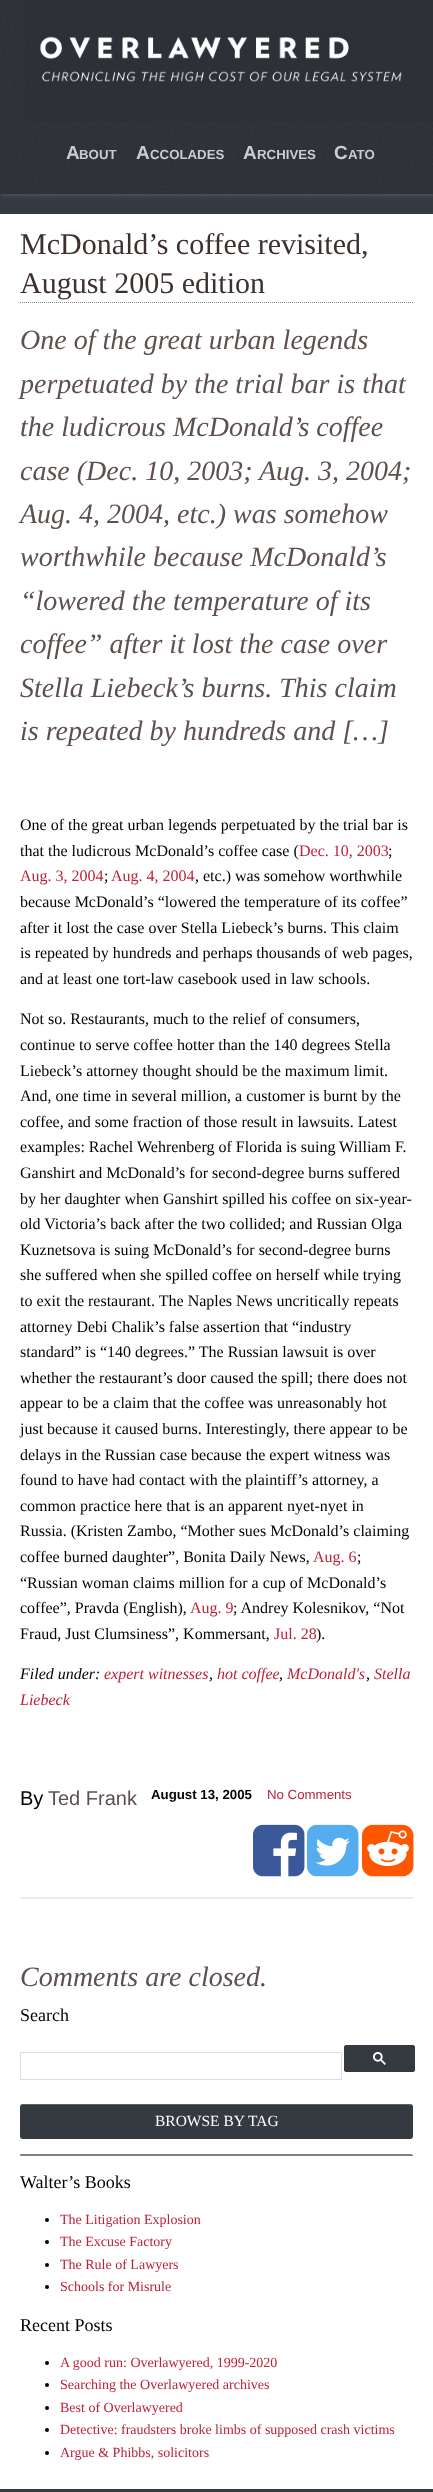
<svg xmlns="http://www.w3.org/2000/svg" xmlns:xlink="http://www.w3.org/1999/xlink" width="433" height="2492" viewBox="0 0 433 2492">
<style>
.cls-1{font:bold 19px Liberation Sans;fill:#cccccc}
.cls-2{font:bold 13.25px Liberation Sans;fill:#cccccc}
.cls-3{font:30px Liberation Serif;fill:#3d302f}
.cls-4{font:italic 28px Liberation Serif;fill:#5d504f}
.cls-5{font:16px Liberation Serif;fill:#050000}
.cls-6{font:16px Liberation Serif;fill:#ba2339}
.cls-7{font:italic 16px Liberation Serif;fill:#050000}
.cls-8{font:italic 16px Liberation Serif;fill:#ba2339}
.cls-9{font:20px Liberation Sans;fill:#050000}
.cls-10{font:20px Liberation Sans;fill:#5d504f}
.cls-11{font:bold 13.25px Liberation Sans;fill:#050000}
.cls-12{font:13.25px Liberation Sans;fill:#ba2339}
.cls-13{font:18px Liberation Serif;fill:#050000}
.cls-14{font:15.5px Liberation Serif;fill:#ffffff}
.cls-15{font:14px Liberation Serif;fill:#ba2339}
</style>
<rect width="100%" height="100%" fill="#343a40"/>
<rect fill="#535f6b" filter="blur(2.5px)" x="1" y="1" width="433" height="194"/>
<image xlink:href="image0.png" x="0" y="0" width="433" height="194"/>
<image xlink:href="image1.png" x="25" y="0" width="408" height="122"/>
<rect fill="#ffffff" x="0" y="214" width="433" height="2275"/>
<path fill="none" stroke="#808080" stroke-dasharray="1 1" d="M20 302.5H413"/>
<rect fill="#f0eceb" x="20" y="1897" width="393" height="2"/>
<image xlink:href="image2.png" x="253" y="1824" width="52" height="53"/>
<image xlink:href="image3.png" x="307" y="1824" width="52" height="53"/>
<image xlink:href="image4.png" x="362" y="1824" width="52" height="53"/>
<rect fill="none" stroke="#dddddd" x="20.5" y="2052.5" width="321" height="27"/>
<rect fill="#343a40" stroke="#343a40" x="344.5" y="2045.5" width="70" height="26" rx="1.5"/>
<image xlink:href="image5.png" x="373" y="2052" width="13" height="13"/>
<rect fill="#343a40" x="20" y="2104" width="393" height="35" rx="3"/>
<path fill="#ffffff" fill-opacity="0.2" d="M23 2105H410C412 2105 413 2106 413 2108C413 2106 412 2104 410 2104H23L21 2105L20 2108C20 2106 21 2105 23 2105Z"/>
<rect fill="#808080" x="20" y="2154" width="393" height="1"/>
<rect fill="#eeeeee" x="412" y="2154" width="1" height="2"/>
<rect fill="#808080" x="20" y="2155" width="393" height="1"/>
<rect fill="#9f9f9f" x="20" y="2154" width="1" height="2"/>
<circle fill="#050000" cx="47" cy="2220" r="2"/>
<circle fill="#050000" cx="47" cy="2242" r="2"/>
<circle fill="#050000" cx="47" cy="2265" r="2"/>
<circle fill="#050000" cx="47" cy="2287" r="2"/>
<circle fill="#050000" cx="47" cy="2363" r="2"/>
<circle fill="#050000" cx="47" cy="2385" r="2"/>
<circle fill="#050000" cx="47" cy="2408" r="2"/>
<circle fill="#050000" cx="47" cy="2430" r="2"/>
<circle fill="#050000" cx="47" cy="2453" r="2"/>
<text class="cls-1" x="66" y="159">A</text>
<text class="cls-2" x="79" y="159">BOUT</text>
<text class="cls-1" x="136" y="159">A</text>
<text class="cls-2" x="150" y="159">CCOLADES</text>
<text class="cls-1" x="243" y="159">A</text>
<text class="cls-2" x="257" y="159">RCHIVES</text>
<text class="cls-1" x="334" y="159">C</text>
<text class="cls-2" x="348" y="159">ATO</text>
<text class="cls-3"><tspan x="20" y="254">McDonald’s coffee revisited,</tspan><tspan x="20" y="293">August 2005 edition</tspan></text>
<text class="cls-4"><tspan x="20" y="349">One of the great urban legends</tspan><tspan x="20" y="393">perpetuated by the trial bar is that</tspan><tspan x="20" y="436">the ludicrous McDonald’s coffee</tspan><tspan x="20" y="480">case (Dec. 10, 2003; Aug. 3, 2004;</tspan><tspan x="20" y="523">Aug. 4, 2004, etc.) was somehow</tspan><tspan x="20" y="566">worthwhile because McDonald’s</tspan><tspan x="20" y="610">“lowered the temperature of its</tspan><tspan x="20" y="653">coffee” after it lost the case over</tspan><tspan x="20" y="697">Stella Liebeck’s burns. This claim</tspan><tspan x="20" y="740">is repeated by hundreds and […]</tspan></text>
<text class="cls-5"><tspan x="20" y="830">One of the great urban legends perpetuated by the trial bar is</tspan><tspan x="20" y="856">that the ludicrous McDonald’s coffee case (</tspan></text>
<text class="cls-6" x="299" y="856">Dec. 10, 2003</text>
<text class="cls-5" x="388" y="856">;</text>
<text class="cls-6" x="20" y="881">Aug. 3, 2004</text>
<text class="cls-5" x="104" y="881">;</text>
<text class="cls-6" x="111" y="881">Aug. 4, 2004</text>
<text class="cls-5" x="195" y="881">, etc.) was somehow worthwhile</text>
<text class="cls-5"><tspan x="20" y="907">because McDonald’s “lowered the temperature of its coffee”</tspan><tspan x="20" y="933">after it lost the case over Stella Liebeck’s burns. This claim</tspan><tspan x="20" y="958">is repeated by hundreds and perhaps thousands of web pages,</tspan><tspan x="20" y="984">and at least one tort-law casebook used in law schools.</tspan></text>
<text class="cls-5"><tspan x="20" y="1024">Not so. Restaurants, much to the relief of consumers,</tspan><tspan x="20" y="1050">continue to serve coffee hotter than the 140 degrees Stella</tspan><tspan x="20" y="1076">Liebeck’s attorney thought should be the maximum limit.</tspan><tspan x="20" y="1101">And, one time in several million, a customer is burnt by the</tspan><tspan x="20" y="1127">coffee, and some fraction of those result in lawsuits. Latest</tspan><tspan x="20" y="1152">examples: Rachel Wehrenberg of Florida is suing William F.</tspan><tspan x="20" y="1178">Ganshirt and McDonald’s for second-degree burns suffered</tspan><tspan x="20" y="1204">by her daughter when Ganshirt spilled his coffee on six-year-</tspan><tspan x="20" y="1229">old Victoria’s back after the two collided; and Russian Olga</tspan><tspan x="20" y="1255">Kuznetsova is suing McDonald’s for second-degree burns</tspan><tspan x="20" y="1280">she suffered when she spilled coffee on herself while trying</tspan><tspan x="20" y="1306">to exit the restaurant. The Naples News uncritically repeats</tspan><tspan x="20" y="1332">attorney Debi Chalik’s false assertion that “industry</tspan><tspan x="20" y="1357">standard” is “140 degrees.” The Russian lawsuit is over</tspan><tspan x="20" y="1383">whether the restaurant’s door caused the spill; there does not</tspan><tspan x="20" y="1408">appear to be a claim that the coffee was unreasonably hot</tspan><tspan x="20" y="1434">just because it caused burns. Interestingly, there appear to be</tspan><tspan x="20" y="1460">delays in the Russian case because the expert witness was</tspan><tspan x="20" y="1485">found to have had contact with the plaintiff’s attorney, a</tspan><tspan x="20" y="1511">common practice here that is an apparent nyet-nyet in</tspan><tspan x="20" y="1536">Russia. (Kristen Zambo, “Mother sues McDonald’s claiming</tspan><tspan x="20" y="1562">coffee burned daughter”, Bonita Daily News,</tspan></text>
<text class="cls-6" x="313" y="1562">Aug. 6</text>
<text class="cls-5" x="357" y="1562">;</text>
<text class="cls-5"><tspan x="20" y="1588">“Russian woman claims million for a cup of McDonald’s</tspan><tspan x="20" y="1613">coffee”, Pravda (English),</tspan></text>
<text class="cls-6" x="190" y="1613">Aug. 9</text>
<text class="cls-5" x="233" y="1613">; Andrey Kolesnikov, “Not</text>
<text class="cls-5" x="20" y="1639">Fraud, Just Clumsiness”, Kommersant,</text>
<text class="cls-6" x="274" y="1639">Jul. 28</text>
<text class="cls-5" x="316" y="1639">).</text>
<text class="cls-7" x="20" y="1679">Filed under:</text>
<text class="cls-8" x="104" y="1679">expert witnesses</text>
<text class="cls-7" x="209" y="1679">,</text>
<text class="cls-8" x="217" y="1679">hot coffee</text>
<text class="cls-7" x="279" y="1679">,</text>
<text class="cls-8" x="287" y="1679">McDonald's</text>
<text class="cls-7" x="366" y="1679">,</text>
<text class="cls-8" x="374" y="1679">Stella</text>
<text class="cls-8" x="20" y="1705">Liebeck</text>
<text class="cls-9" x="20" y="1805">By</text>
<text class="cls-10" x="48" y="1805">Ted Frank</text>
<text class="cls-11" x="151" y="1799">August 13, 2005</text>
<text class="cls-12" x="267" y="1799">No Comments</text>
<text class="cls-4" x="20" y="1986">Comments are closed.</text>
<text class="cls-13" x="20" y="2021">Search</text>
<text class="cls-14" x="155" y="2126">BROWSE BY TAG</text>
<text class="cls-13" x="20" y="2188">Walter’s Books</text>
<text class="cls-15"><tspan x="60" y="2224">The Litigation Explosion</tspan><tspan x="60" y="2246">The Excuse Factory</tspan><tspan x="60" y="2269">The Rule of Lawyers</tspan><tspan x="60" y="2291">Schools for Misrule</tspan></text>
<text class="cls-13" x="20" y="2331">Recent Posts</text>
<text class="cls-15"><tspan x="60" y="2367">A good run: Overlawyered, 1999-2020</tspan><tspan x="60" y="2389">Searching the Overlawyered archives</tspan><tspan x="60" y="2412">Best of Overlawyered</tspan><tspan x="60" y="2434">Detective: fraudsters broke limbs of supposed crash victims</tspan><tspan x="60" y="2457">Argue &amp; Phibbs, solicitors</tspan></text>
</svg>
